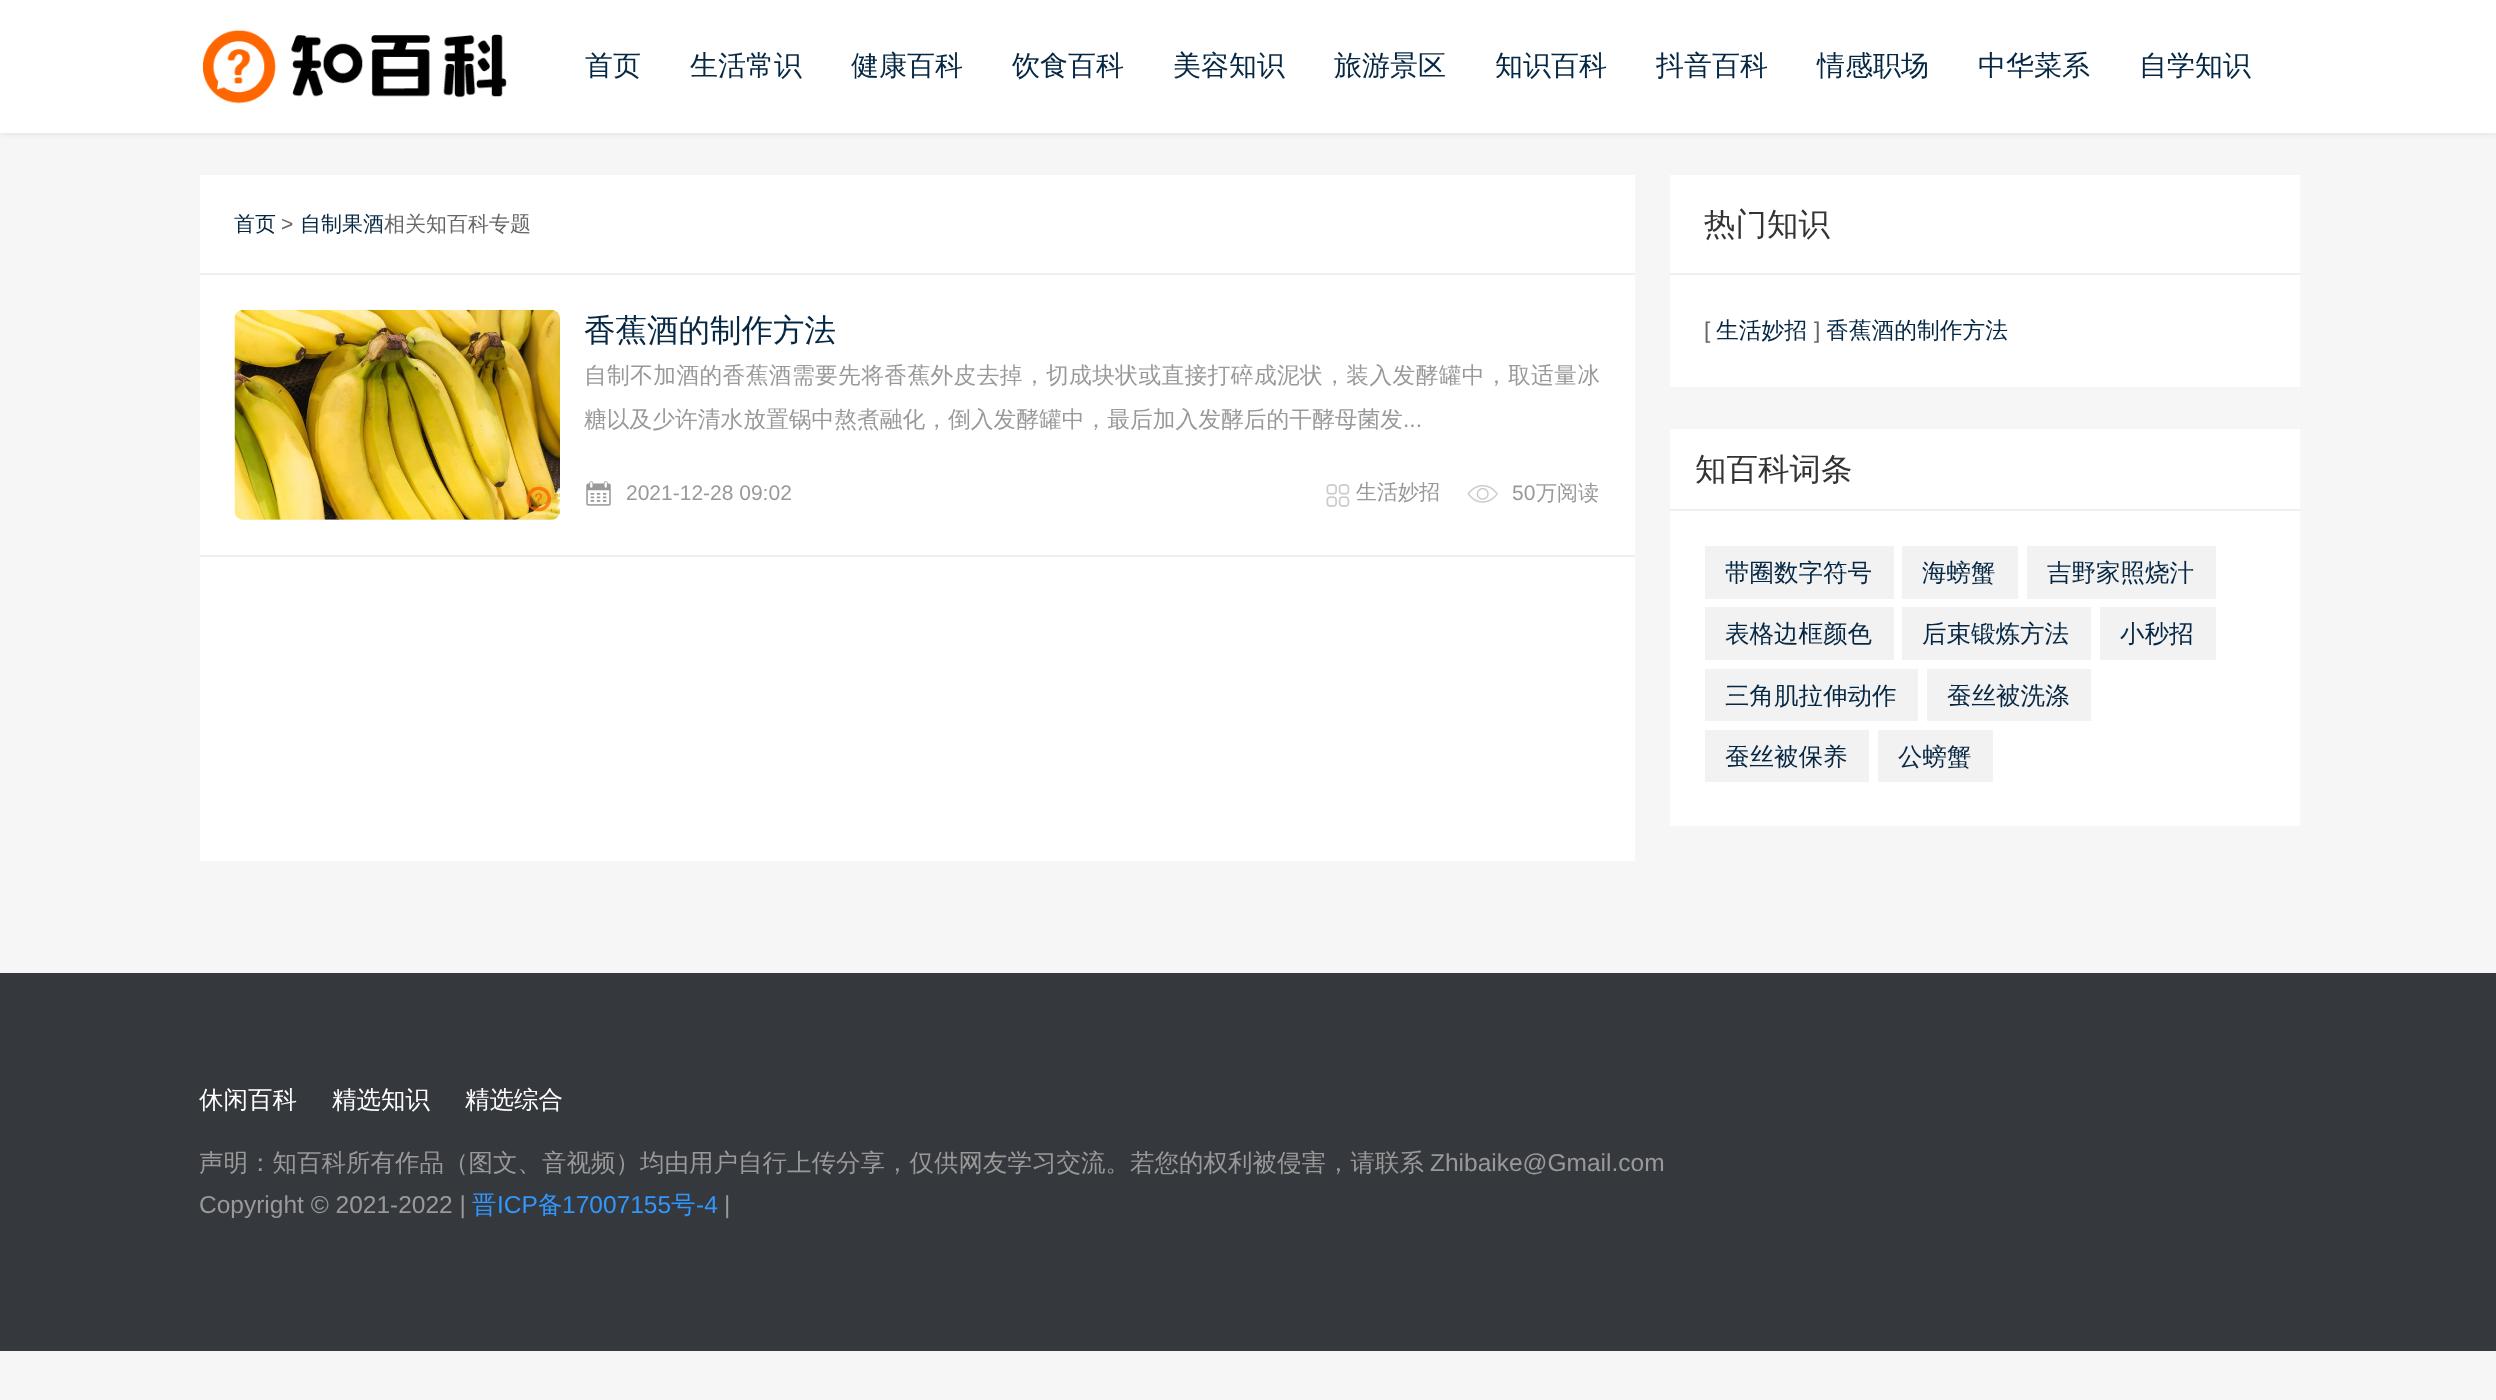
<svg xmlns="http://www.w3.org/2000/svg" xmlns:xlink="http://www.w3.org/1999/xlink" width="2496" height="1400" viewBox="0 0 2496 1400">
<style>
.cls-1{font:500 28px WenQuanYi Zen Hei;fill:#062743}
.cls-2{font:500 21px WenQuanYi Zen Hei;fill:#062743}
.cls-3{font:21px Liberation Sans;fill:#666666}
.cls-4{font:500 21px WenQuanYi Zen Hei;fill:#666666}
.cls-5{font:500 31.5px WenQuanYi Zen Hei;fill:#062743}
.cls-6{font:500 22.75px WenQuanYi Zen Hei;letter-spacing:0.35px;fill:#999999}
.cls-7{font:500 22.75px WenQuanYi Zen Hei;fill:#999999}
.cls-8{font:22.75px Liberation Sans;fill:#999999}
.cls-9{font:21px Liberation Sans;fill:#999999}
.cls-10{font:500 21px WenQuanYi Zen Hei;fill:#999999}
.cls-11{font:500 31.5px WenQuanYi Zen Hei;fill:#333333}
.cls-12{font:22.75px Liberation Sans;fill:#666666}
.cls-13{font:500 22.75px WenQuanYi Zen Hei;fill:#062743}
.cls-14{font:500 24.5px WenQuanYi Zen Hei;fill:#062743}
.cls-15{font:500 24.5px WenQuanYi Zen Hei;fill:#ffffff}
.cls-16{font:500 24.5px WenQuanYi Zen Hei;fill:#999999}
.cls-17{font:24.5px Liberation Sans;fill:#999999}
.cls-18{font:500 24.5px WenQuanYi Zen Hei;fill:#3297fc}
.cls-19{font:24.5px Liberation Sans;fill:#3297fc}
</style>
<rect width="100%" height="100%" fill="#f6f6f6"/>
<rect fill="#000000" fill-opacity="0.1" filter="blur(3.5px)" x="0" y="0" width="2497" height="133"/>
<rect fill="#ffffff" x="0" y="0" width="2496" height="133"/>
<image xlink:href="image0.png" x="203" y="30" width="304" height="74"/>
<rect fill="#ffffff" x="200" y="175" width="1435" height="686"/>
<rect fill="#efefef" x="200" y="273" width="1435" height="2"/>
<rect fill="#efefef" x="200" y="555" width="1435" height="2"/>
<rect fill="#f0f0f0" x="235" y="310" width="325" height="210" rx="9"/>
<image xlink:href="image1.png" x="234" y="309" width="326" height="211"/>
<image xlink:href="image2.png" x="586" y="481" width="25" height="25"/>
<image xlink:href="image3.png" x="1326" y="484" width="24" height="23"/>
<image xlink:href="image4.png" x="1467" y="484" width="31" height="19"/>
<rect fill="#ffffff" x="1670" y="175" width="630" height="212"/>
<rect fill="#efefef" x="1670" y="273" width="630" height="2"/>
<rect fill="#ffffff" x="1670" y="429" width="630" height="80"/>
<rect fill="#efefef" x="1670" y="509" width="630" height="2"/>
<rect fill="#ffffff" x="1670" y="511" width="630" height="315"/>
<rect fill="#f2f2f2" x="1705" y="546" width="189" height="53"/>
<rect fill="#f2f2f2" x="1902" y="546" width="116" height="53"/>
<rect fill="#f2f2f2" x="2027" y="546" width="189" height="53"/>
<rect fill="#f2f2f2" x="1705" y="607" width="189" height="53"/>
<rect fill="#f2f2f2" x="1902" y="607" width="189" height="53"/>
<rect fill="#f2f2f2" x="2100" y="607" width="116" height="53"/>
<rect fill="#f2f2f2" x="1705" y="669" width="213" height="52"/>
<rect fill="#f2f2f2" x="1927" y="669" width="164" height="52"/>
<rect fill="#f2f2f2" x="1705" y="730" width="164" height="52"/>
<rect fill="#f2f2f2" x="1878" y="730" width="115" height="52"/>
<rect fill="#35383d" x="0" y="973" width="2496" height="378"/>
<text class="cls-1" x="585" y="75">首页</text>
<text class="cls-1" x="690" y="75">生活常识</text>
<text class="cls-1" x="851" y="75">健康百科</text>
<text class="cls-1" x="1012" y="75">饮食百科</text>
<text class="cls-1" x="1173" y="75">美容知识</text>
<text class="cls-1" x="1334" y="75">旅游景区</text>
<text class="cls-1" x="1495" y="75">知识百科</text>
<text class="cls-1" x="1656" y="75">抖音百科</text>
<text class="cls-1" x="1817" y="75">情感职场</text>
<text class="cls-1" x="1978" y="75">中华菜系</text>
<text class="cls-1" x="2139" y="75">自学知识</text>
<text class="cls-2" x="234" y="231">首页</text>
<text class="cls-3" x="281" y="231">&gt;</text>
<text class="cls-2" x="300" y="231">自制果酒</text>
<text class="cls-4" x="384" y="231">相关知百科专题</text>
<text class="cls-5" x="584" y="341">香蕉酒的制作方法</text>
<text class="cls-6" x="584" y="383">自制不加酒的香蕉酒需要先将香蕉外皮去掉，切成块状或直接打碎成泥状，装入发酵罐中，取适量冰</text>
<text class="cls-7" x="584" y="427">糖以及少许清水放置锅中熬煮融化，倒入发酵罐中，最后加入发酵后的干酵母菌发</text>
<text class="cls-8" x="1403" y="427">...</text>
<text class="cls-9" x="626" y="500">2021-12-28 09:02</text>
<text class="cls-10" x="1356" y="499">生活妙招</text>
<text class="cls-9" x="1512" y="500">50</text>
<text class="cls-10" x="1536" y="500">万阅读</text>
<text class="cls-11" x="1704" y="235">热门知识</text>
<text class="cls-12" x="1704" y="338">[</text>
<text class="cls-13" x="1716" y="338">生活妙招</text>
<text class="cls-12" x="1814" y="338">]</text>
<text class="cls-13" x="1826" y="338">香蕉酒的制作方法</text>
<text class="cls-11" x="1695" y="480">知百科词条</text>
<text class="cls-14" x="1725" y="581">带圈数字符号</text>
<text class="cls-14" x="1922" y="581">海螃蟹</text>
<text class="cls-14" x="2047" y="581">吉野家照烧汁</text>
<text class="cls-14" x="1725" y="642">表格边框颜色</text>
<text class="cls-14" x="1922" y="642">后束锻炼方法</text>
<text class="cls-14" x="2120" y="642">小秒招</text>
<text class="cls-14" x="1725" y="704">三角肌拉伸动作</text>
<text class="cls-14" x="1947" y="704">蚕丝被洗涤</text>
<text class="cls-14" x="1725" y="765">蚕丝被保养</text>
<text class="cls-14" x="1898" y="765">公螃蟹</text>
<text class="cls-15" x="199" y="1108">休闲百科</text>
<text class="cls-15" x="332" y="1108">精选知识</text>
<text class="cls-15" x="465" y="1108">精选综合</text>
<text class="cls-16" x="199" y="1171">声明：知百科所有作品（图文、音视频）均由用户自行上传分享，仅供网友学习交流。若您的权利被侵害，请联系</text>
<text class="cls-17" x="1430" y="1171">Zhibaike@Gmail.com</text>
<text class="cls-17" x="199" y="1213">Copyright © 2021-2022 |</text>
<text class="cls-18" x="472" y="1213">晋</text>
<text class="cls-19" x="497" y="1213">ICP</text>
<text class="cls-18" x="538" y="1213">备</text>
<text class="cls-19" x="562" y="1213">17007155</text>
<text class="cls-18" x="671" y="1213">号</text>
<text class="cls-19" x="696" y="1213">-4</text>
<text class="cls-17" x="724" y="1213">|</text>
</svg>
